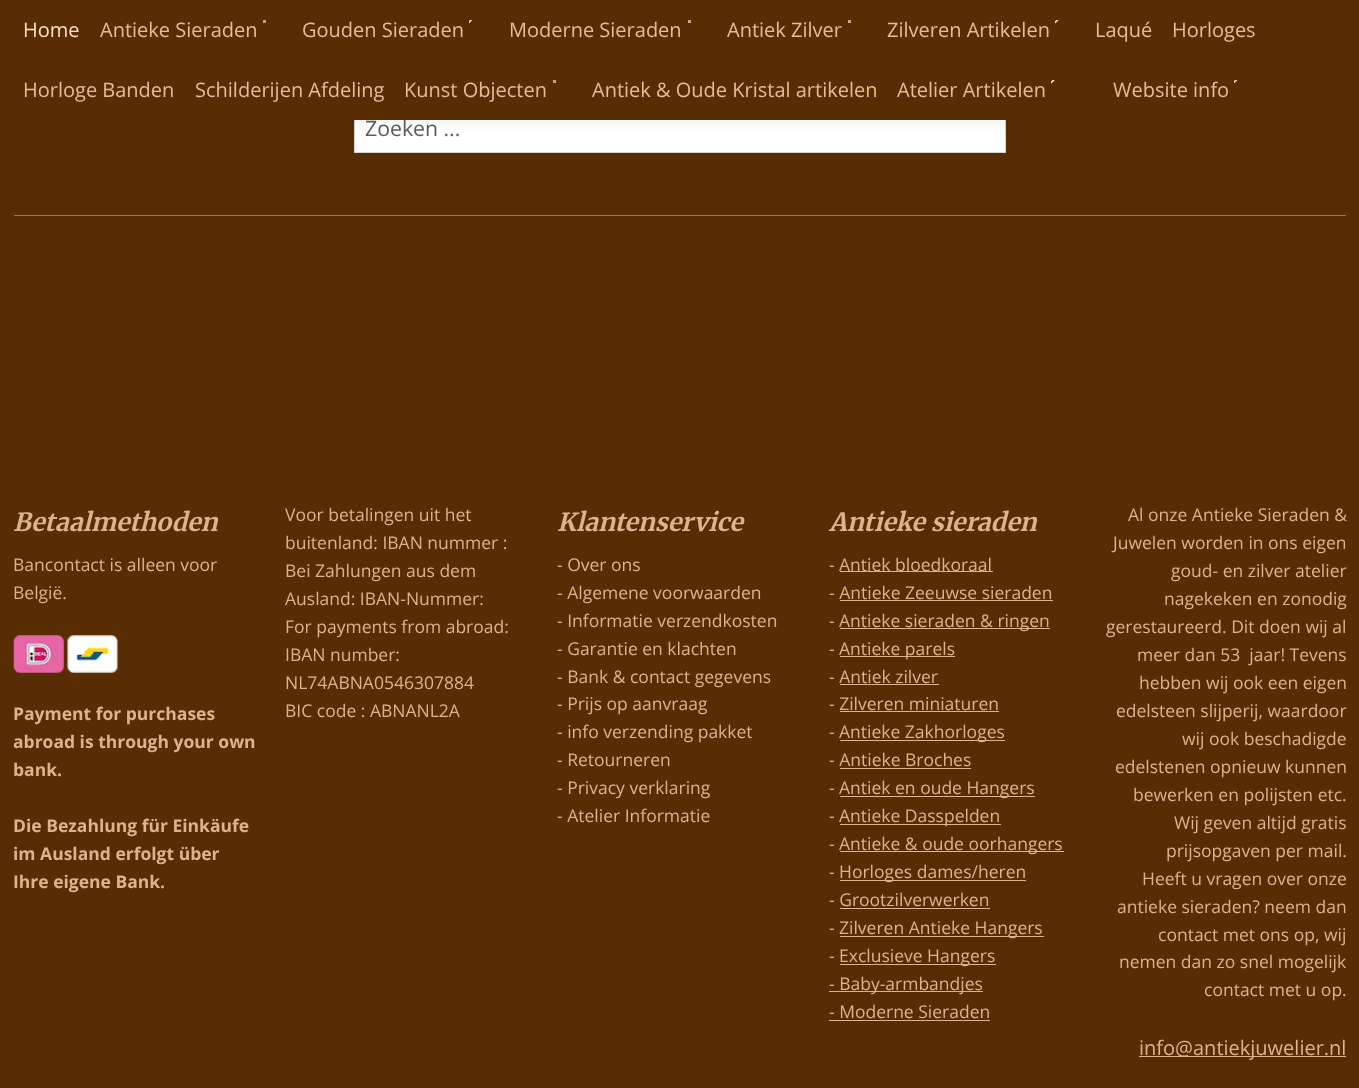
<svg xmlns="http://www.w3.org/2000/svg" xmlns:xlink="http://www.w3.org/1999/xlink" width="1359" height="1088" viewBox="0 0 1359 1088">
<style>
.cls-1{font:21.25px Open Sans;fill:#575b62}
.cls-2{font:20px Open Sans;fill:#e4bc9b}
.cls-3{font:20px Open Sans;fill:#f8dfc9}
.cls-4{font:italic bold 25px Merriweather;fill:#d9b48f}
.cls-5{font:17.5px Open Sans;fill:#d9b48f}
.cls-6{font:bold 17.5px Open Sans;fill:#d9b48f}
.cls-7{font:20px Open Sans;fill:#d9b48f}
</style>
<rect width="100%" height="100%" fill="#592d04"/>
<rect fill="#ffffff" x="355" y="120" width="650" height="32"/>
<rect fill="none" stroke="#d3d5d9" x="354.5" y="103.5" width="651" height="49"/>
<rect fill="#000000" fill-opacity="0.08" filter="blur(7.5px)" x="0" y="0" width="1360" height="120"/>
<rect fill="#ac7342" x="14" y="215" width="1332" height="1"/>
<image xlink:href="image3.png" x="13" y="635" width="51" height="38"/>
<image xlink:href="image4.png" x="67" y="635" width="51" height="38"/>
<rect fill="#d9b48f" x="840" y="571" width="153" height="1"/>
<rect fill="#d9b48f" x="840" y="600" width="213" height="1"/>
<rect fill="#d9b48f" x="840" y="628" width="210" height="1"/>
<rect fill="#d9b48f" x="840" y="656" width="115" height="1"/>
<rect fill="#d9b48f" x="840" y="684" width="99" height="1"/>
<rect fill="#d9b48f" x="840" y="711" width="159" height="1"/>
<rect fill="#d9b48f" x="840" y="740" width="165" height="1"/>
<rect fill="#d9b48f" x="840" y="768" width="131" height="1"/>
<rect fill="#d9b48f" x="840" y="796" width="195" height="1"/>
<rect fill="#d9b48f" x="840" y="824" width="161" height="1"/>
<rect fill="#d9b48f" x="840" y="851" width="224" height="1"/>
<rect fill="#d9b48f" x="840" y="880" width="186" height="1"/>
<rect fill="#d9b48f" x="840" y="908" width="150" height="1"/>
<rect fill="#d9b48f" x="840" y="936" width="204" height="1"/>
<rect fill="#d9b48f" x="840" y="964" width="156" height="1"/>
<rect fill="#d9b48f" x="829" y="991" width="154" height="1"/>
<rect fill="#d9b48f" x="829" y="1020" width="161" height="1"/>
<rect fill="#d9b48f" x="1139" y="1056" width="207" height="1"/>
<text class="cls-1" x="365" y="136">Zoeken ...</text>
<rect fill="#592d04" x="0" y="0" width="1359" height="120"/>
<image xlink:href="image0.png" x="1234" y="80" width="4" height="4"/>
<text class="cls-2" x="1113" y="97">Website info</text>
<image xlink:href="image2.png" x="1051" y="80" width="4" height="4"/>
<text class="cls-2" x="897" y="97">Atelier Artikelen</text>
<rect fill="#bfa28a" x="553" y="80" width="3" height="3"/>
<text class="cls-2" x="404" y="97">Kunst Objecten</text>
<image xlink:href="image1.png" x="1055" y="20" width="4" height="4"/>
<text class="cls-2" x="887" y="37">Zilveren Artikelen</text>
<rect fill="#bfa28a" x="848" y="20" width="3" height="3"/>
<text class="cls-2" x="727" y="37">Antiek Zilver</text>
<rect fill="#bfa28a" x="688" y="20" width="3" height="3"/>
<text class="cls-2" x="509" y="37">Moderne Sieraden</text>
<image xlink:href="image0.png" x="469" y="20" width="4" height="4"/>
<text class="cls-2" x="302" y="37">Gouden Sieraden</text>
<rect fill="#bfa28a" x="263" y="20" width="3" height="3"/>
<text class="cls-2" x="100" y="37">Antieke Sieraden</text>
<text class="cls-2" x="592" y="97">Antiek &amp; Oude Kristal artikelen</text>
<text class="cls-2" x="195" y="97">Schilderijen Afdeling</text>
<text class="cls-2" x="23" y="97">Horloge Banden</text>
<text class="cls-2" x="1172" y="37">Horloges</text>
<text class="cls-2" x="1095" y="37">Laqué</text>
<text class="cls-3" x="23" y="37">Home</text>
<text class="cls-4" x="13" y="531">Betaalmethoden</text>
<text class="cls-5"><tspan x="13" y="571">Bancontact is alleen voor</tspan><tspan x="13" y="599">België.</tspan></text>
<text class="cls-6"><tspan x="13" y="720">Payment for purchases</tspan><tspan x="13" y="748">abroad is through your own</tspan><tspan x="13" y="776">bank.</tspan></text>
<text class="cls-6"><tspan x="13" y="832">Die Bezahlung für Einkäufe</tspan><tspan x="13" y="860">im Ausland erfolgt über</tspan><tspan x="13" y="888">Ihre eigene Bank.</tspan></text>
<text class="cls-5"><tspan x="285" y="521">Voor betalingen uit het</tspan><tspan x="285" y="549">buitenland: IBAN nummer :</tspan><tspan x="285" y="577">Bei Zahlungen aus dem</tspan><tspan x="285" y="605">Ausland: IBAN-Nummer:</tspan><tspan x="285" y="633">For payments from abroad:</tspan><tspan x="285" y="661">IBAN number:</tspan><tspan x="285" y="689">NL74ABNA0546307884</tspan><tspan x="285" y="717">BIC code : ABNANL2A</tspan></text>
<text class="cls-4" x="557" y="531">Klantenservice</text>
<text class="cls-5"><tspan x="557" y="571">- Over ons</tspan><tspan x="557" y="599">- Algemene voorwaarden</tspan><tspan x="557" y="627">- Informatie verzendkosten</tspan><tspan x="557" y="655">- Garantie en klachten</tspan><tspan x="557" y="683">- Bank &amp; contact gegevens</tspan><tspan x="557" y="710">- Prijs op aanvraag</tspan><tspan x="557" y="738">- info verzending pakket</tspan><tspan x="557" y="766">- Retourneren</tspan><tspan x="557" y="794">- Privacy verklaring</tspan><tspan x="557" y="822">- Atelier Informatie</tspan></text>
<text class="cls-4" x="829" y="531">Antieke sieraden</text>
<text class="cls-5" x="829" y="571">-</text>
<text class="cls-5" x="839" y="571">Antiek bloedkoraal</text>
<text class="cls-5"><tspan x="829" y="599">- Antieke Zeeuwse sieraden</tspan><tspan x="829" y="627">-</tspan></text>
<text class="cls-5" x="839" y="627">Antieke sieraden &amp; ringen</text>
<text class="cls-5" x="829" y="655">-</text>
<text class="cls-5" x="839" y="655">Antieke parels</text>
<text class="cls-5"><tspan x="829" y="683">- Antiek zilver</tspan><tspan x="829" y="710">- Zilveren miniaturen</tspan><tspan x="829" y="738">-</tspan></text>
<text class="cls-5" x="839" y="738">Antieke Zakhorloges</text>
<text class="cls-5"><tspan x="829" y="766">- Antieke Broches</tspan><tspan x="829" y="794">-</tspan></text>
<text class="cls-5" x="839" y="794">Antiek en oude Hangers</text>
<text class="cls-5" x="829" y="822">-</text>
<text class="cls-5" x="839" y="822">Antieke Dasspelden</text>
<text class="cls-5" x="829" y="850">-</text>
<text class="cls-5" x="839" y="850">Antieke &amp; oude oorhangers</text>
<text class="cls-5" x="829" y="878">-</text>
<text class="cls-5" x="839" y="878">Horloges dames/heren</text>
<text class="cls-5"><tspan x="829" y="906">- Grootzilverwerken</tspan><tspan x="829" y="934">-</tspan></text>
<text class="cls-5" x="839" y="934">Zilveren Antieke Hangers</text>
<text class="cls-5" x="829" y="962">-</text>
<text class="cls-5" x="839" y="962">Exclusieve Hangers</text>
<text class="cls-5"><tspan x="829" y="990">- Baby-armbandjes</tspan><tspan x="829" y="1018">- Moderne Sieraden</tspan></text>
<text class="cls-5" x="1128" y="521">Al onze Antieke Sieraden &amp;</text>
<text class="cls-5" x="1113" y="549">Juwelen worden in ons eigen</text>
<text class="cls-5" x="1171" y="577">goud- en zilver atelier</text>
<text class="cls-5" x="1164" y="605">nagekeken en zonodig</text>
<text class="cls-5" x="1106" y="633">gerestaureerd. Dit doen wij al</text>
<text class="cls-5" xml:space="preserve" x="1137" y="661">meer dan 53  jaar! Tevens</text>
<text class="cls-5" x="1139" y="689">hebben wij ook een eigen</text>
<text class="cls-5" x="1116" y="717">edelsteen slijperij, waardoor</text>
<text class="cls-5" x="1182" y="745">wij ook beschadigde</text>
<text class="cls-5" x="1115" y="773">edelstenen opnieuw kunnen</text>
<text class="cls-5" x="1133" y="801">bewerken en polijsten etc.</text>
<text class="cls-5" x="1174" y="829">Wij geven altijd gratis</text>
<text class="cls-5" x="1166" y="857">prijsopgaven per mail.</text>
<text class="cls-5" x="1142" y="885">Heeft u vragen over onze</text>
<text class="cls-5" x="1117" y="913">antieke sieraden? neem dan</text>
<text class="cls-5" x="1158" y="941">contact met ons op, wij</text>
<text class="cls-5" x="1119" y="968">nemen dan zo snel mogelijk</text>
<text class="cls-5" x="1204" y="996">contact met u op.</text>
<text class="cls-7" x="1139" y="1055">info@antiekjuwelier.nl</text>
</svg>
